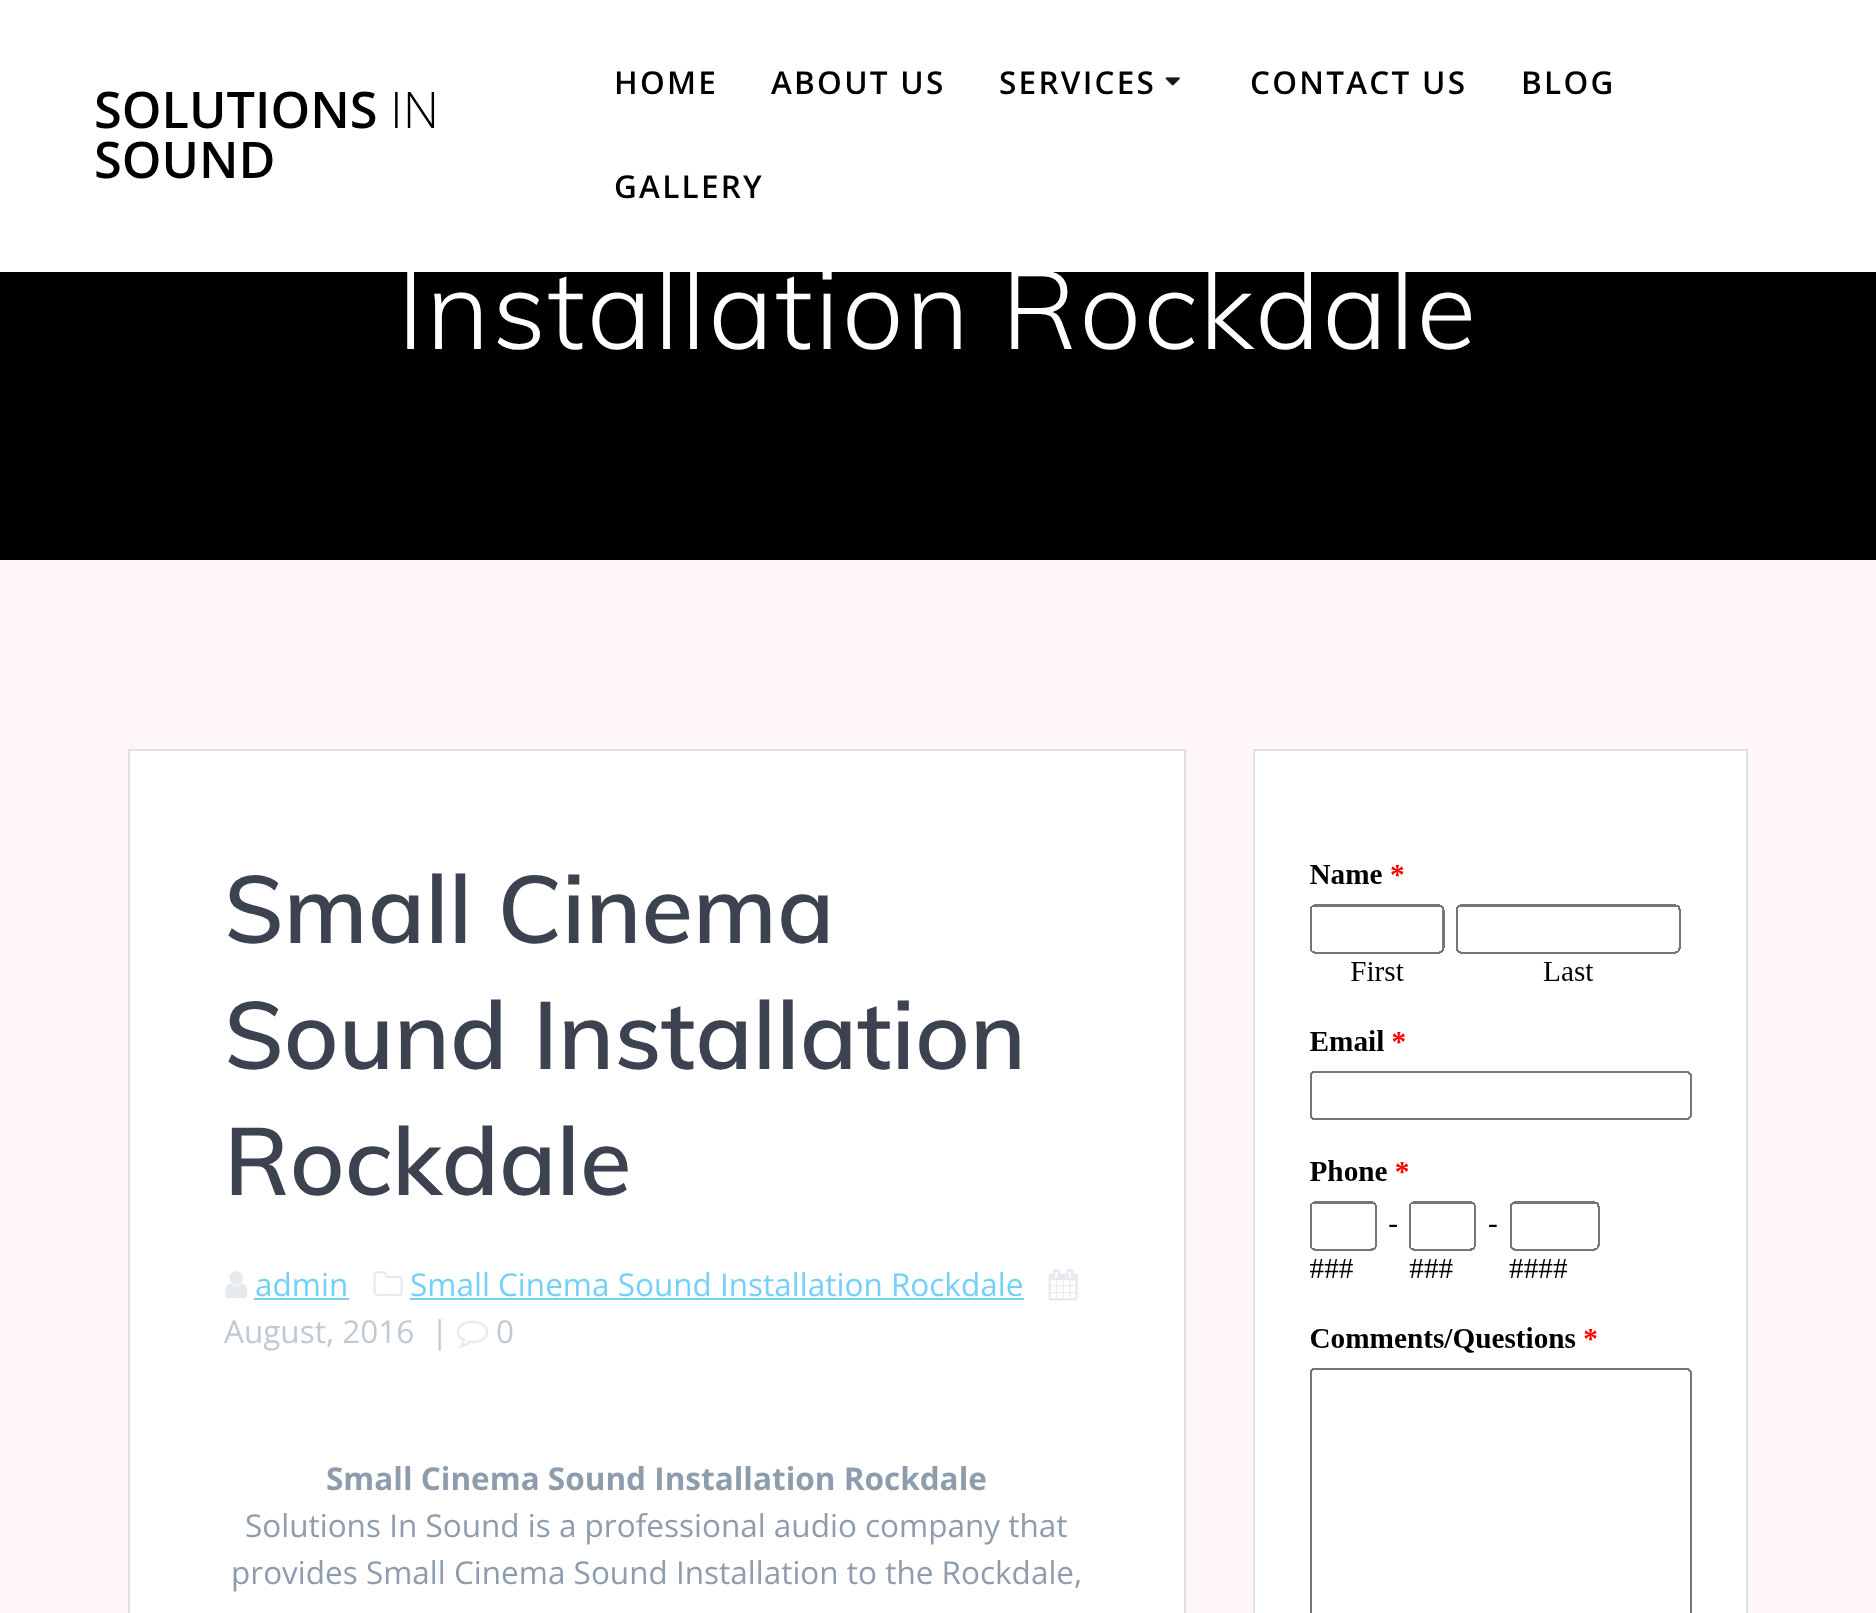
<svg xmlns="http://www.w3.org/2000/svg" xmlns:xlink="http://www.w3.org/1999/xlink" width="1876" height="1613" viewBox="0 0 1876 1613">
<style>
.cls-1{font:600 50.5px Open Sans;fill:#000000}
.cls-2{font:300 50.5px Open Sans;fill:#000000}
.cls-3{font:600 31.5px Open Sans;letter-spacing:2.25px;fill:#000000}
.cls-4{font:300 110.25px Muli;letter-spacing:2px;fill:#ffffff}
.cls-5{font:600 94.5px Muli;fill:#3c424f}
.cls-6{font:31.5px Open Sans;fill:#74d0f9}
.cls-7{font:31.5px Open Sans;fill:#c1c9d2}
.cls-8{font:bold 31.5px Open Sans;fill:#8e9dae}
.cls-9{font:31.5px Open Sans;fill:#8e9dae}
</style>
<rect width="100%" height="100%" fill="#fff7f7"/>
<rect fill="#000000" x="0" y="272" width="1876" height="288"/>
<rect fill="#000000" fill-opacity="0.33" filter="blur(5.5px)" x="-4" y="-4" width="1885" height="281"/>
<rect fill="#ffffff" x="0" y="0" width="1876" height="272"/>
<image xlink:href="image0.png" x="1165" y="77" width="15" height="9"/>
<rect fill="#ffffff" stroke="#e0e1e1" stroke-width="2" x="129" y="750" width="1056" height="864"/>
<image xlink:href="image1.png" x="225" y="1271" width="23" height="28"/>
<rect fill="#74d0f9" x="254" y="1298" width="95" height="2"/>
<image xlink:href="image2.png" x="373" y="1271" width="30" height="25"/>
<rect fill="#74d0f9" x="410" y="1298" width="614" height="2"/>
<image xlink:href="image3.png" x="1048" y="1269" width="30" height="32"/>
<image xlink:href="image4.png" x="456" y="1320" width="33" height="28"/>
<rect fill="#ffffff" stroke="#e0e1e1" stroke-width="2" x="1254" y="750" width="493" height="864"/>
<image xlink:href="image5.png" x="1310" y="865" width="382" height="748"/>
<text class="cls-1" x="94" y="128">SOLUTIONS</text>
<text class="cls-2" x="390" y="128">IN</text>
<text class="cls-1" x="94" y="178">SOUND</text>
<text class="cls-3" x="614" y="94">HOME</text>
<text class="cls-3" x="771" y="94">ABOUT US</text>
<text class="cls-3" x="999" y="94">SERVICES</text>
<text class="cls-3" x="1250" y="94">CONTACT US</text>
<text class="cls-3" x="1521" y="94">BLOG</text>
<text class="cls-3" x="614" y="198">GALLERY</text>
<text class="cls-4" x="397" y="349">Installation Rockdale</text>
<text class="cls-5"><tspan x="224" y="943">Small Cinema</tspan><tspan x="224" y="1069">Sound Installation</tspan><tspan x="224" y="1195">Rockdale</tspan></text>
<text class="cls-6" x="255" y="1296">admin</text>
<text class="cls-6" x="410" y="1296">Small Cinema Sound Installation Rockdale</text>
<text class="cls-7" x="224" y="1343">August, 2016</text>
<text class="cls-7" x="431" y="1343">|</text>
<text class="cls-7" x="496" y="1343">0</text>
<text class="cls-8" x="326" y="1490">Small Cinema Sound Installation Rockdale</text>
<text class="cls-9" x="245" y="1537">Solutions In Sound is a professional audio company that</text>
<text class="cls-9" x="231" y="1584">provides Small Cinema Sound Installation to the Rockdale,</text>
</svg>
